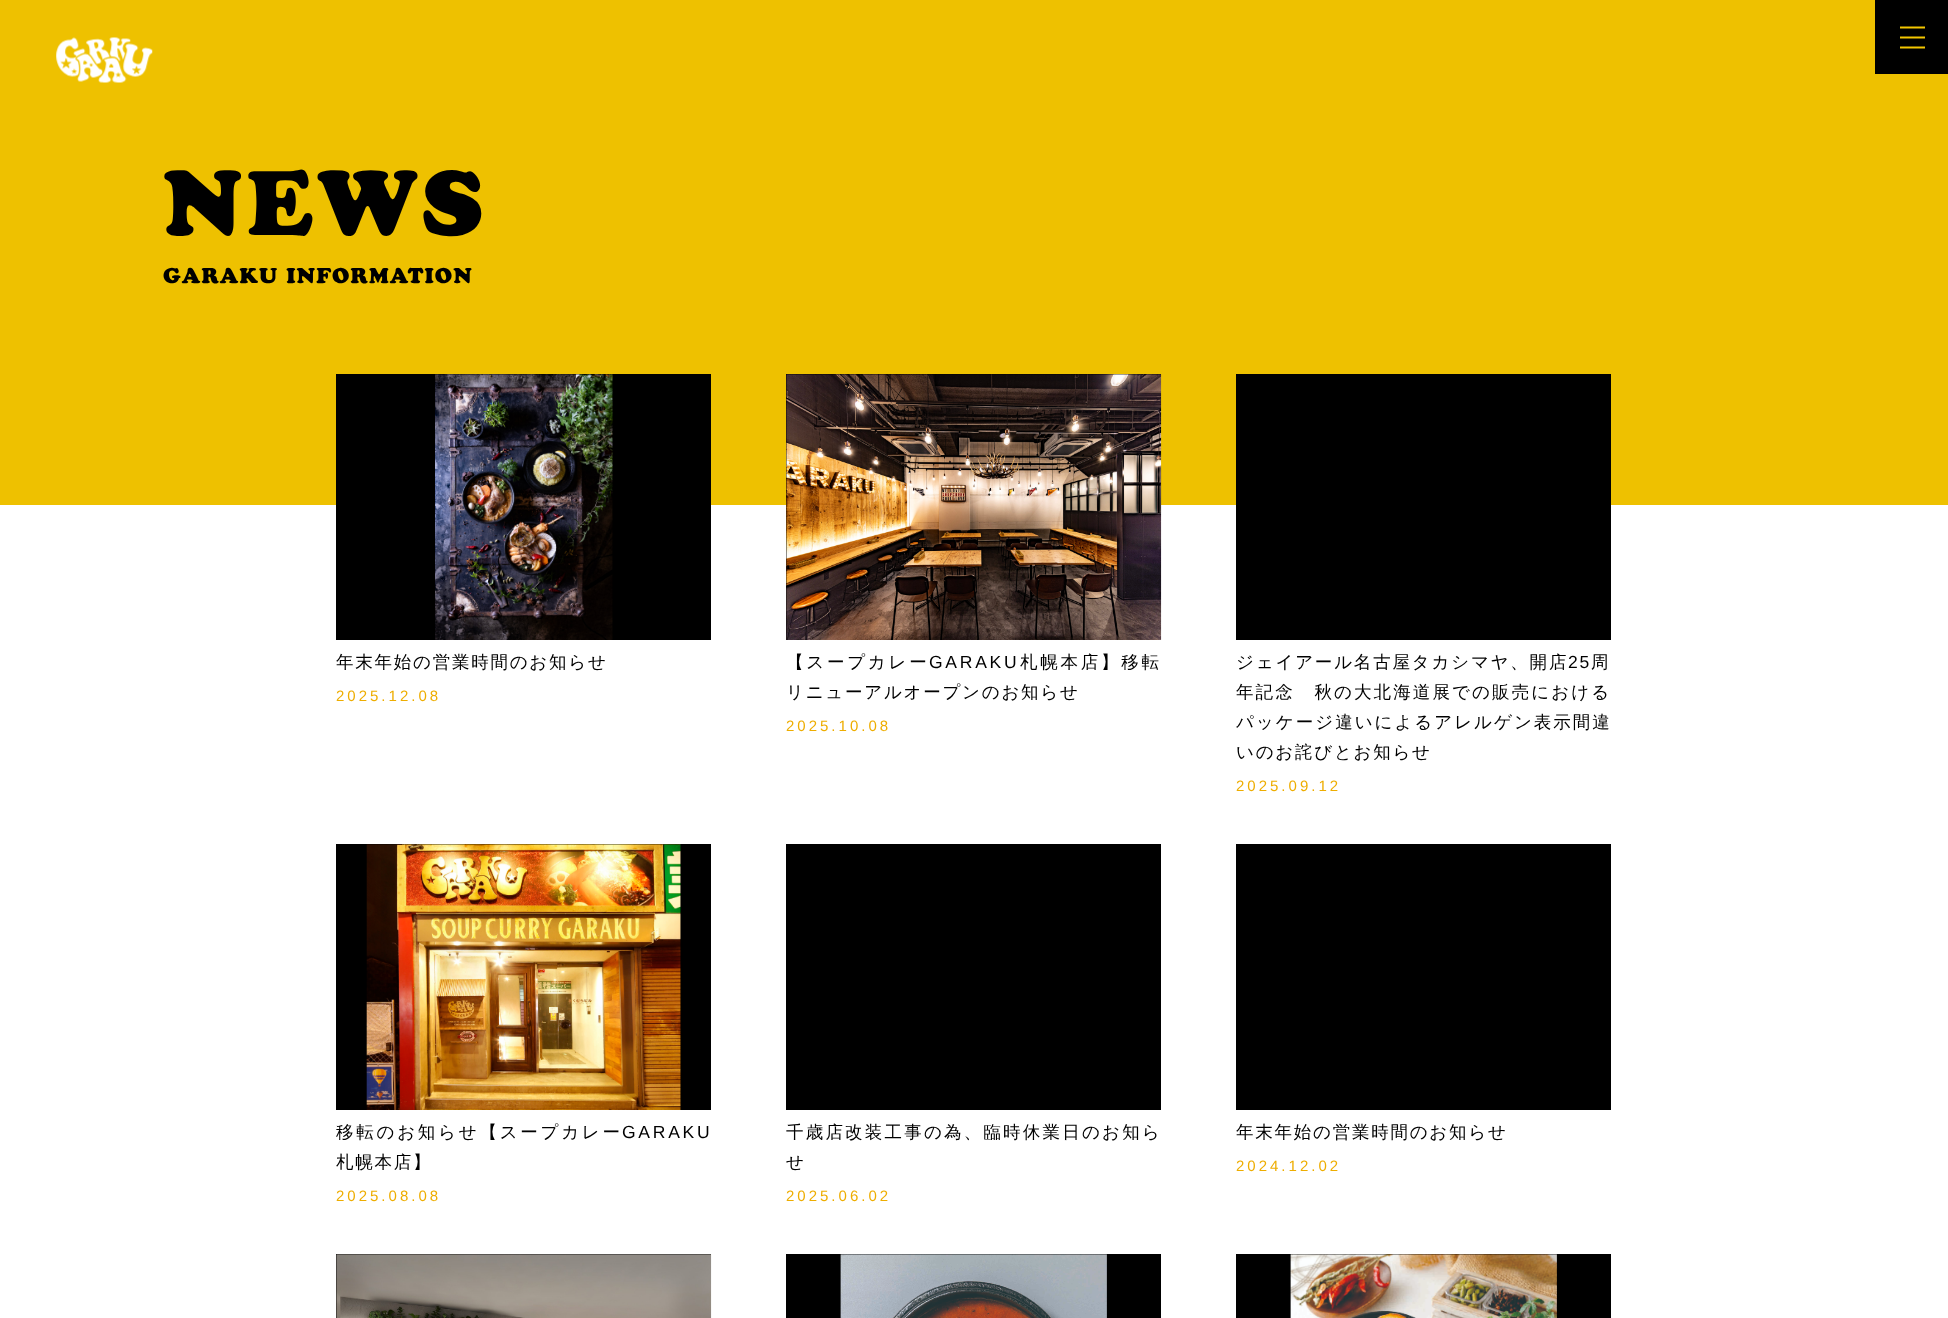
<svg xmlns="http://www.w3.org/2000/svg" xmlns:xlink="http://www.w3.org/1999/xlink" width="1948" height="1318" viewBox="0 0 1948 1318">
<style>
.cls-1{font:900 91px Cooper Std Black;letter-spacing:4.5px;fill:#000000}
.cls-2{font:900 21.25px Cooper Std Black;letter-spacing:1.1px;fill:#000000}
.cls-3{font:500 17.5px WenQuanYi Zen Hei;letter-spacing:1.75px;fill:#000000}
.cls-4{font:15px Liberation Sans;letter-spacing:3px;fill:#eead00}
.cls-5{font:500 17.5px WenQuanYi Zen Hei;letter-spacing:2.75px;fill:#000000}
.cls-6{font:17.5px Liberation Sans;letter-spacing:2.75px;fill:#000000}
.cls-7{font:500 17.5px WenQuanYi Zen Hei;letter-spacing:1.8px;fill:#000000}
.cls-8{font:17.5px Liberation Sans;letter-spacing:1.8px;fill:#000000}
.cls-9{font:500 17.5px WenQuanYi Zen Hei;letter-spacing:2.1px;fill:#000000}
.cls-10{font:500 17.5px WenQuanYi Zen Hei;letter-spacing:2px;fill:#000000}
.cls-11{font:500 17.5px WenQuanYi Zen Hei;letter-spacing:2.2px;fill:#000000}
</style>
<rect width="100%" height="100%" fill="#ffffff"/>
<rect fill="#eec100" x="0" y="0" width="1948" height="505"/>
<image xlink:href="image0.png" x="56" y="37" width="97" height="46"/>
<rect fill="#000000" x="1875" y="0" width="73" height="74"/>
<path fill="none" stroke="#f3c600" stroke-width="2" d="M1900 27.5H1925M1900 37.5H1925M1900 47.5H1925"/>
<rect fill="#000000" x="336" y="374" width="375" height="266"/>
<image xlink:href="image1.png" x="435" y="374" width="178" height="266"/>
<rect fill="#000000" x="786" y="374" width="375" height="266"/>
<image xlink:href="image2.png" x="786" y="374" width="376" height="266"/>
<rect fill="#000000" x="1236" y="374" width="375" height="266"/>
<rect fill="#000000" x="336" y="844" width="375" height="266"/>
<image xlink:href="image3.png" x="366" y="844" width="315" height="266"/>
<rect fill="#000000" x="786" y="844" width="375" height="266"/>
<rect fill="#000000" x="1236" y="844" width="375" height="266"/>
<rect fill="#000000" x="336" y="1254" width="375" height="64"/>
<image xlink:href="image4.png" x="336" y="1254" width="376" height="64"/>
<rect fill="#000000" x="786" y="1254" width="375" height="64"/>
<image xlink:href="image5.png" x="840" y="1254" width="267" height="64"/>
<rect fill="#000000" x="1236" y="1254" width="375" height="64"/>
<image xlink:href="image6.png" x="1290" y="1254" width="267" height="64"/>
<text class="cls-1" x="163" y="235">NEWS</text>
<text class="cls-2" x="163" y="283">GARAKU INFORMATION</text>
<text class="cls-3" x="336" y="668">年末年始の営業時間のお知らせ</text>
<text class="cls-4" x="336" y="701">2025.12.08</text>
<text class="cls-5" x="786" y="668">【スープカレー</text>
<text class="cls-6" x="929" y="668">GARAKU</text>
<text class="cls-5" x="1020" y="668">札幌本店】移転</text>
<text class="cls-3" x="786" y="698">リニューアルオープンのお知らせ</text>
<text class="cls-4" x="786" y="731">2025.10.08</text>
<text class="cls-7" x="1236" y="668">ジェイアール名古屋タカシマヤ、開店</text>
<text class="cls-8" x="1568" y="668">25</text>
<text class="cls-7" x="1591" y="668">周</text>
<text class="cls-9" x="1236" y="698">年記念　秋の大北海道展での販売における</text>
<text class="cls-10" x="1236" y="728">パッケージ違いによるアレルゲン表示間違</text>
<text class="cls-3" x="1236" y="758">いのお詫びとお知らせ</text>
<text class="cls-4" x="1236" y="791">2025.09.12</text>
<text class="cls-5" x="336" y="1138">移転のお知らせ【スープカレー</text>
<text class="cls-6" x="622" y="1138">GARAKU</text>
<text class="cls-3" x="336" y="1168">札幌本店】</text>
<text class="cls-4" x="336" y="1201">2025.08.08</text>
<text class="cls-11" x="786" y="1138">千歳店改装工事の為、臨時休業日のお知ら</text>
<text class="cls-3" x="786" y="1168">せ</text>
<text class="cls-4" x="786" y="1201">2025.06.02</text>
<text class="cls-3" x="1236" y="1138">年末年始の営業時間のお知らせ</text>
<text class="cls-4" x="1236" y="1171">2024.12.02</text>
</svg>
